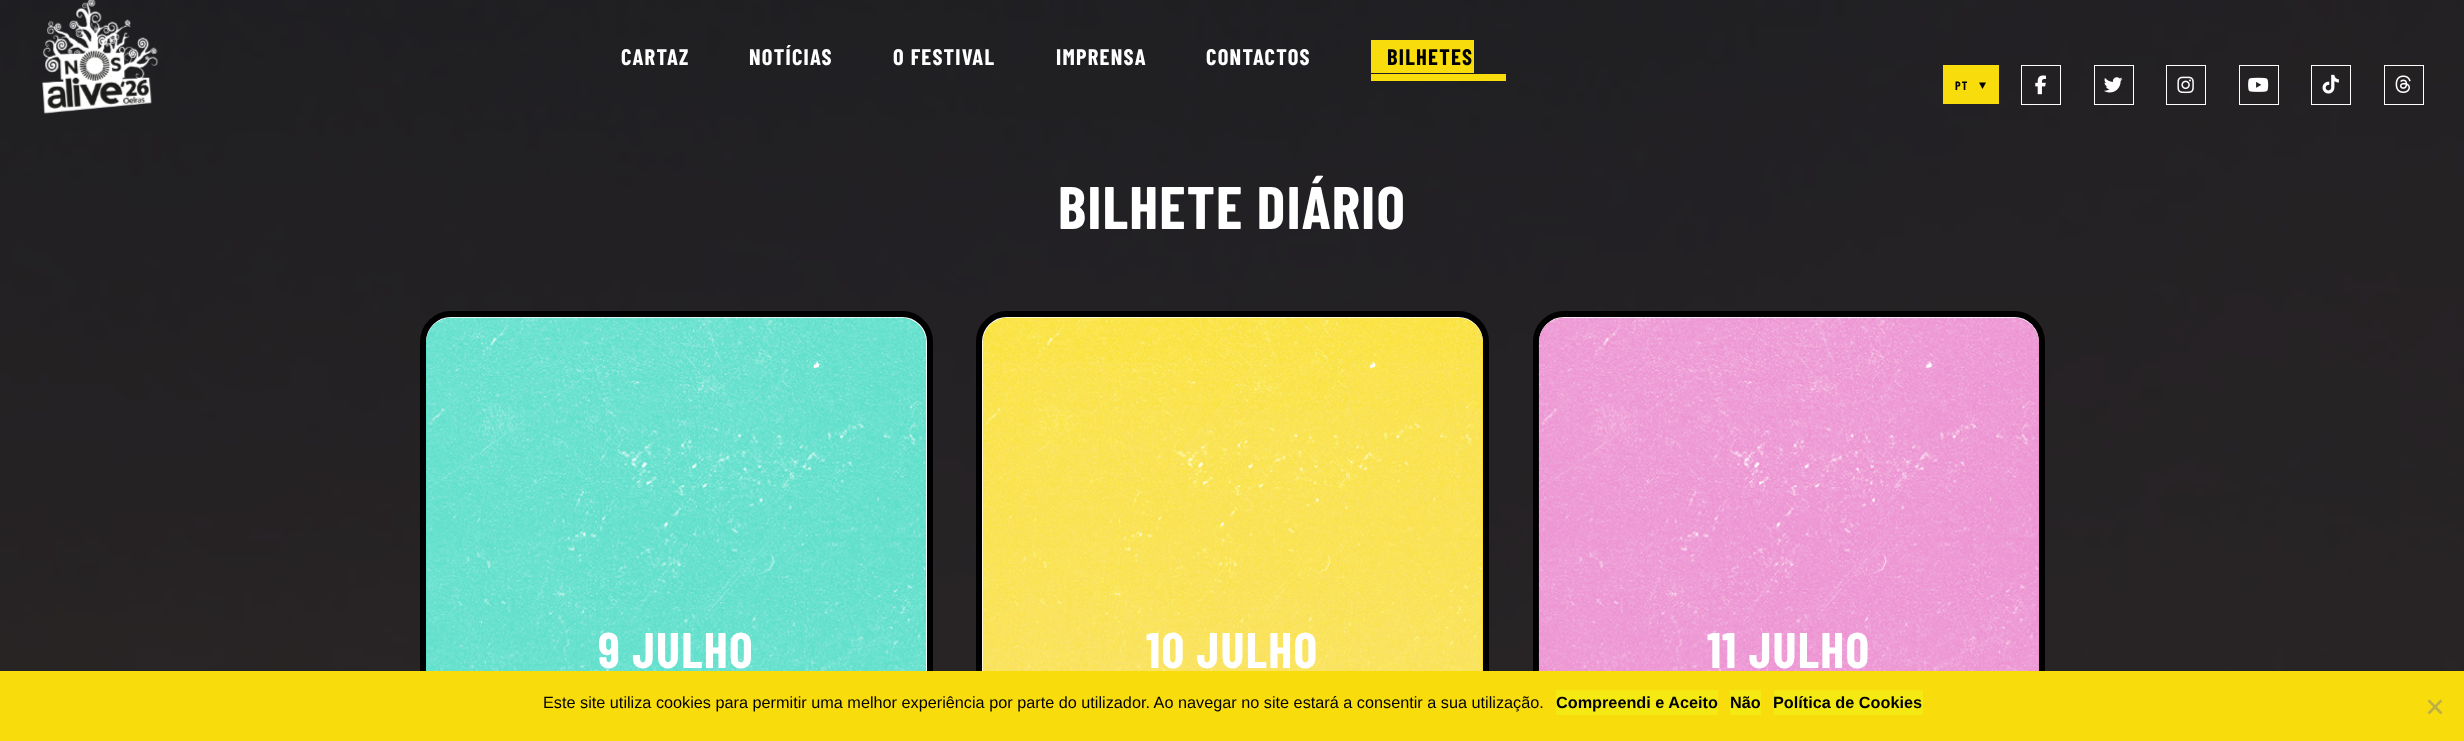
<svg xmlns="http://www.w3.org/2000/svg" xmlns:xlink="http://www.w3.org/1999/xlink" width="2464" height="741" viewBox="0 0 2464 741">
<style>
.cls-1{font:bold 22.5px Barlow Condensed;letter-spacing:1.25px;fill:#ffffff}
.cls-2{font:bold 22.5px Barlow Condensed;letter-spacing:1.25px;fill:#000000}
.cls-3{font:bold 12px Barlow Condensed;letter-spacing:1.25px;fill:#000000}
.cls-4{font:bold 60px Barlow Condensed;letter-spacing:1.25px;fill:#ffffff}
.cls-5{font:bold 50px Barlow Condensed;letter-spacing:1.25px;fill:#ffffff}
.cls-6{font:16.25px Liberation Sans;fill:#000000}
.cls-7{font:bold 16.25px Liberation Sans;fill:#000000}
</style>
<rect width="100%" height="100%" fill="#ffffff"/>
<image xlink:href="image7.png" x="0" y="0" width="2464" height="671"/>
<image xlink:href="image0.png" x="42" y="0" width="116" height="114"/>
<rect fill="#f9dc0b" x="1371" y="40" width="103" height="33"/>
<rect fill="#f9dc0b" x="1371" y="74" width="135" height="7"/>
<rect fill="#f9dc0b" x="1943" y="65" width="56" height="39"/>
<path fill="#000000" d="M1979 82.5H1986L1982.5 89Z"/>
<image xlink:href="image1.png" x="2035" y="75" width="11" height="20"/>
<rect fill="none" stroke="#ffffff" x="2021.5" y="65.5" width="39" height="39"/>
<image xlink:href="image2.png" x="2104" y="77" width="19" height="16"/>
<rect fill="none" stroke="#ffffff" x="2094.5" y="65.5" width="39" height="39"/>
<image xlink:href="image3.png" x="2177" y="76" width="17" height="18"/>
<rect fill="none" stroke="#ffffff" x="2166.5" y="65.5" width="39" height="39"/>
<image xlink:href="image4.png" x="2248" y="77" width="21" height="15"/>
<rect fill="none" stroke="#ffffff" x="2239.5" y="65.5" width="39" height="39"/>
<image xlink:href="image5.png" x="2322" y="74" width="17" height="20"/>
<rect fill="none" stroke="#ffffff" x="2311.5" y="65.5" width="39" height="39"/>
<image xlink:href="image6.png" x="2395" y="75" width="16" height="18"/>
<rect fill="none" stroke="#ffffff" x="2384.5" y="65.5" width="39" height="39"/>
<rect fill="#ffffff" stroke="#000000" stroke-width="6" x="423" y="314" width="507" height="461" rx="28"/>
<rect fill="#4bdbc5" x="426" y="318" width="500" height="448" rx="25"/>
<image xlink:href="image8.png" x="426" y="317" width="501" height="354"/>
<rect fill="#ffffff" stroke="#000000" stroke-width="6" x="979" y="314" width="507" height="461" rx="28"/>
<rect fill="#fadd0b" x="983" y="318" width="500" height="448" rx="25"/>
<image xlink:href="image9.png" x="982" y="317" width="501" height="354"/>
<rect fill="#ffffff" stroke="#000000" stroke-width="6" x="1536" y="314" width="506" height="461" rx="28"/>
<rect fill="#eb84cd" x="1539" y="318" width="500" height="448" rx="25"/>
<image xlink:href="image10.png" x="1538" y="317" width="501" height="354"/>
<rect fill="#f9dc0b" x="0" y="671" width="2464" height="70"/>
<rect fill="#f4e912" x="1556" y="690" width="162" height="25"/>
<rect fill="#f4e912" x="1730" y="690" width="31" height="25"/>
<rect fill="#f4e912" x="1774" y="690" width="149" height="25"/>
<path fill="#bdae46" d="M2440.5 699.5L2442.5 701L2429.5 714.5L2427.5 712.5Z"/>
<path fill="#bdae46" d="M2427.5 701L2429.5 699.5L2442.5 712.5L2440.5 714.5Z"/>
<text class="cls-1" x="621" y="65">CARTAZ</text>
<text class="cls-1" x="749" y="65">NOTÍCIAS</text>
<text class="cls-1" x="893" y="65">O FESTIVAL</text>
<text class="cls-1" x="1056" y="65">IMPRENSA</text>
<text class="cls-1" x="1206" y="65">CONTACTOS</text>
<text class="cls-2" x="1387" y="65">BILHETES</text>
<text class="cls-3" x="1955" y="90">PT</text>
<text class="cls-4" x="1058" y="229">BILHETE DIÁRIO</text>
<text class="cls-5" x="598" y="668">9 JULHO</text>
<text class="cls-5" x="1146" y="668">10 JULHO</text>
<text class="cls-5" x="1707" y="668">11 JULHO</text>
<text class="cls-6" x="543" y="708">Este site utiliza cookies para permitir uma melhor experiência por parte do utilizador. Ao navegar no site estará a consentir a sua utilização.</text>
<text class="cls-7" x="1556" y="708">Compreendi e Aceito</text>
<text class="cls-7" x="1730" y="708">Não</text>
<text class="cls-7" x="1773" y="708">Política de Cookies</text>
</svg>
